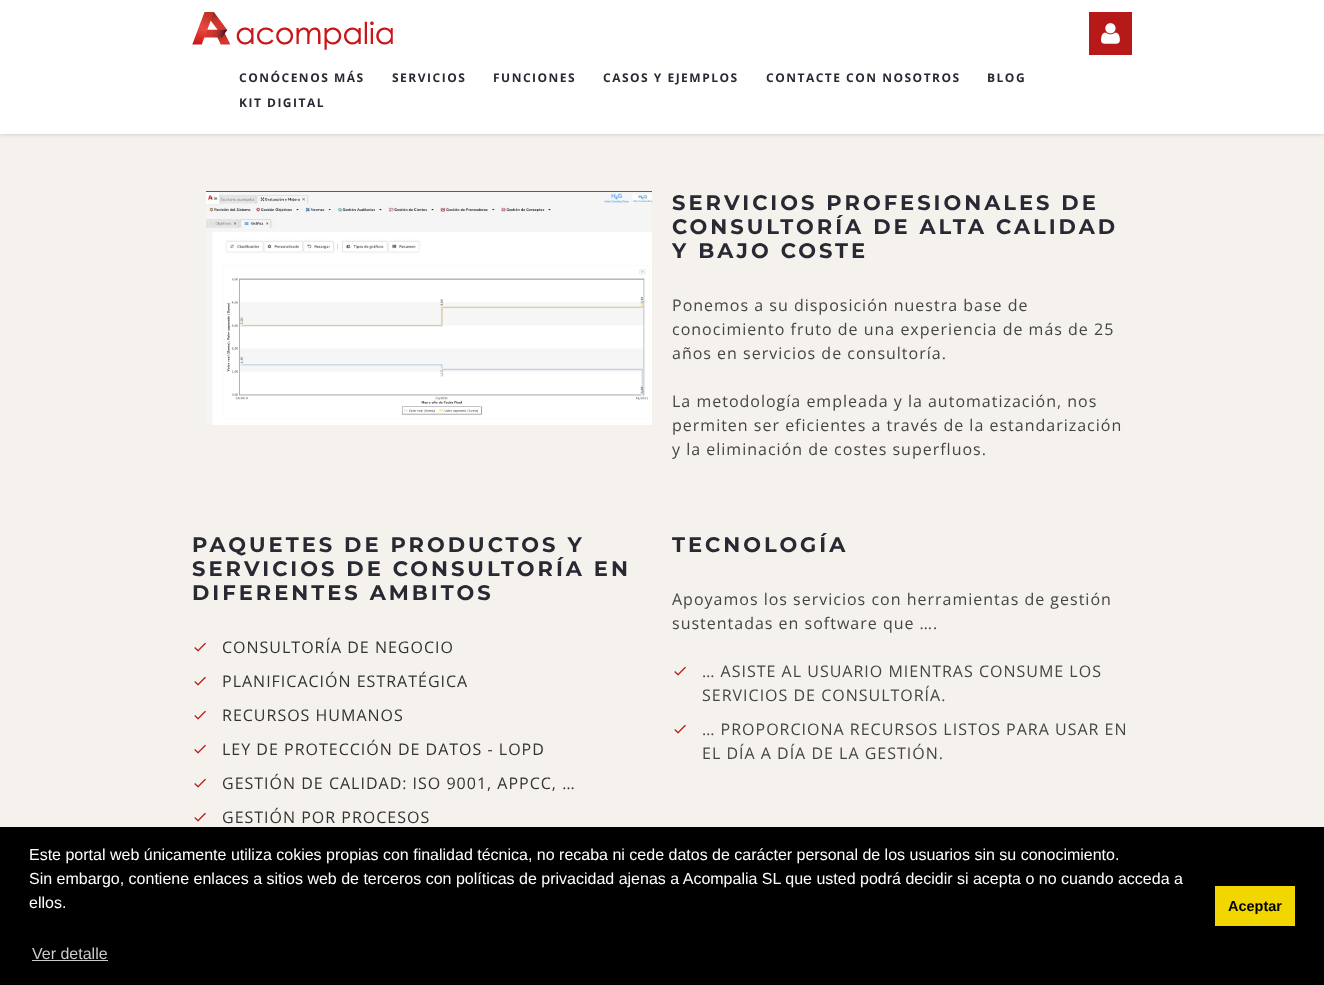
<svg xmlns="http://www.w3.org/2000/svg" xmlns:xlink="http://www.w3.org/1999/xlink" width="1324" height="985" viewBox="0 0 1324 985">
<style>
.cls-1{font:bold 12px Open Sans;letter-spacing:1.5px;fill:#292933}
.cls-2{font:bold 21px Montserrat;letter-spacing:3px;fill:#292933}
.cls-3{font:16px Open Sans;letter-spacing:1px;fill:#454545}
.cls-4{font:16px Open Sans;letter-spacing:1px;fill:#333333}
.cls-5{font:16px Liberation Sans;fill:#ffffff}
.cls-6{font:16px Liberation Sans;fill:#cccccc}
.cls-7{font:bold 14.5px Liberation Sans;fill:#000000}
</style>
<rect width="100%" height="100%" fill="#f5f2ee"/>
<rect fill="#000000" fill-opacity="0.2" filter="blur(2px)" x="0" y="0" width="1324" height="134"/>
<rect fill="#ffffff" x="0" y="0" width="1324" height="134"/>
<image xlink:href="image0.png" x="192" y="12" width="201" height="38"/>
<rect fill="#b71818" x="1089" y="12" width="43" height="43"/>
<image xlink:href="image1.png" x="1101" y="23" width="19" height="21"/>
<image xlink:href="image2.png" x="206" y="191" width="446" height="234"/>
<image xlink:href="image3.png" x="194" y="642" width="12" height="10"/>
<image xlink:href="image3.png" x="194" y="676" width="12" height="10"/>
<image xlink:href="image3.png" x="194" y="710" width="12" height="10"/>
<image xlink:href="image3.png" x="194" y="744" width="12" height="10"/>
<image xlink:href="image3.png" x="194" y="778" width="12" height="10"/>
<image xlink:href="image3.png" x="194" y="812" width="12" height="10"/>
<image xlink:href="image3.png" x="674" y="666" width="12" height="10"/>
<image xlink:href="image3.png" x="674" y="724" width="12" height="10"/>
<rect fill="#000000" x="0" y="827" width="1324" height="158"/>
<rect fill="#cccccc" x="32" y="960" width="76" height="1"/>
<rect fill="#f1d600" x="1215" y="886" width="80" height="40"/>
<text class="cls-1" x="239" y="82">CONÓCENOS MÁS</text>
<text class="cls-1" x="392" y="82">SERVICIOS</text>
<text class="cls-1" x="493" y="82">FUNCIONES</text>
<text class="cls-1" x="603" y="82">CASOS Y EJEMPLOS</text>
<text class="cls-1" x="766" y="82">CONTACTE CON NOSOTROS</text>
<text class="cls-1" x="987" y="82">BLOG</text>
<text class="cls-1" x="239" y="107">KIT DIGITAL</text>
<text class="cls-2"><tspan x="672" y="210">SERVICIOS PROFESIONALES DE</tspan><tspan x="672" y="234">CONSULTORÍA DE ALTA CALIDAD</tspan><tspan x="672" y="258">Y BAJO COSTE</tspan></text>
<text class="cls-3"><tspan x="672" y="311">Ponemos a su disposición nuestra base de</tspan><tspan x="672" y="335">conocimiento fruto de una experiencia de más de 25</tspan><tspan x="672" y="359">años en servicios de consultoría.</tspan></text>
<text class="cls-3"><tspan x="672" y="407">La metodología empleada y la automatización, nos</tspan><tspan x="672" y="431">permiten ser eficientes a través de la estandarización</tspan><tspan x="672" y="455">y la eliminación de costes superfluos.</tspan></text>
<text class="cls-2"><tspan x="192" y="552">PAQUETES DE PRODUCTOS Y</tspan><tspan x="192" y="576">SERVICIOS DE CONSULTORÍA EN</tspan><tspan x="192" y="600">DIFERENTES AMBITOS</tspan></text>
<text class="cls-4" x="222" y="653">CONSULTORÍA DE NEGOCIO</text>
<text class="cls-4" x="222" y="687">PLANIFICACIÓN ESTRATÉGICA</text>
<text class="cls-4" x="222" y="721">RECURSOS HUMANOS</text>
<text class="cls-4" x="222" y="755">LEY DE PROTECCIÓN DE DATOS - LOPD</text>
<text class="cls-4" x="222" y="789">GESTIÓN DE CALIDAD: ISO 9001, APPCC, …</text>
<text class="cls-4" x="222" y="823">GESTIÓN POR PROCESOS</text>
<text class="cls-2" x="672" y="552">TECNOLOGÍA</text>
<text class="cls-3"><tspan x="672" y="605">Apoyamos los servicios con herramientas de gestión</tspan><tspan x="672" y="629">sustentadas en software que ….</tspan></text>
<text class="cls-3"><tspan x="702" y="677">… ASISTE AL USUARIO MIENTRAS CONSUME LOS</tspan><tspan x="702" y="701">SERVICIOS DE CONSULTORÍA.</tspan></text>
<text class="cls-3"><tspan x="702" y="735">… PROPORCIONA RECURSOS LISTOS PARA USAR EN</tspan><tspan x="702" y="759">EL DÍA A DÍA DE LA GESTIÓN.</tspan></text>
<text class="cls-5"><tspan x="29" y="860">Este portal web únicamente utiliza cokies propias con finalidad técnica, no recaba ni cede datos de carácter personal de los usuarios sin su conocimiento.</tspan><tspan x="29" y="884">Sin embargo, contiene enlaces a sitios web de terceros con políticas de privacidad ajenas a Acompalia SL que usted podrá decidir si acepta o no cuando acceda a</tspan><tspan x="29" y="908">ellos.</tspan></text>
<text class="cls-6" x="32" y="959">Ver detalle</text>
<text class="cls-7" x="1228" y="911">Aceptar</text>
</svg>
